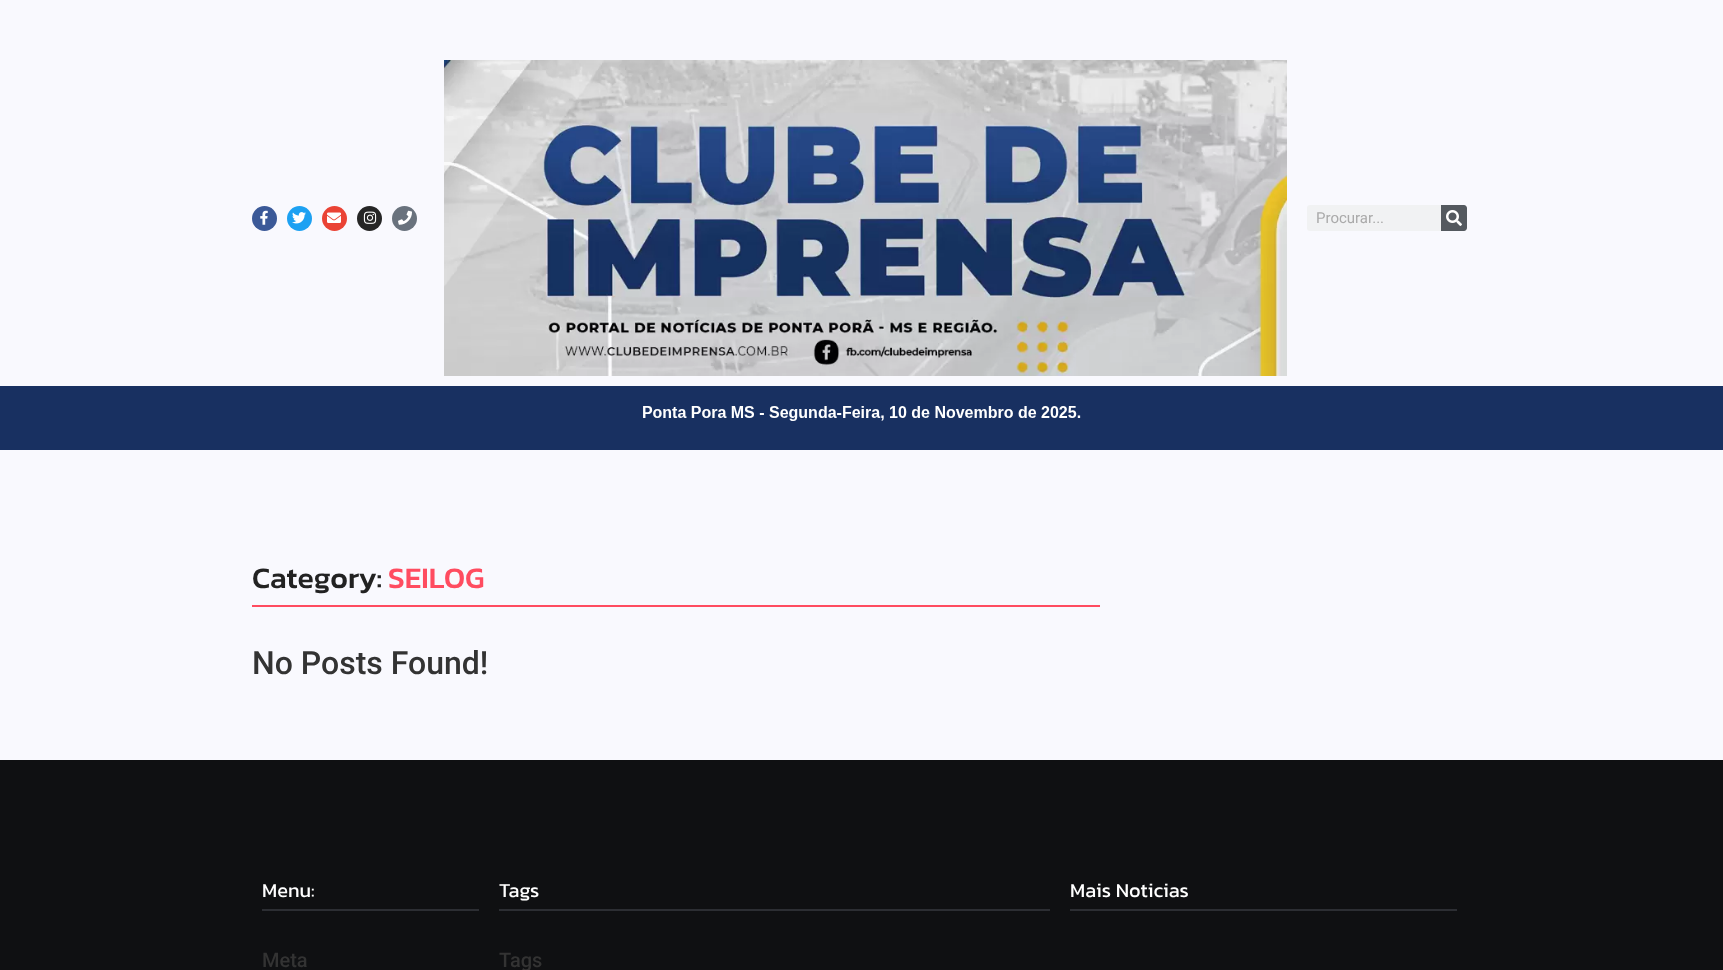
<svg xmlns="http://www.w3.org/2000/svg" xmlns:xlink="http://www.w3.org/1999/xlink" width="1723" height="970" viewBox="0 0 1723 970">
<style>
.cls-1{font:15px Roboto;fill:#aaaaaa}
.cls-2{font:500 30px Kanit;fill:#222222}
.cls-3{font:500 30px Kanit;fill:#ff4c60}
.cls-4{font:500 32px Roboto;fill:#333333}
.cls-5{font:20px Kanit;fill:#ffffff}
.cls-6{font:500 20px Roboto;fill:#333333}
</style>
<rect width="100%" height="100%" fill="#f9f9fe"/>
<circle fill="#3b5998" cx="264.5" cy="218.5" r="12.5"/>
<image xlink:href="image0.png" x="260" y="210" width="8" height="15"/>
<circle fill="#1da1f2" cx="299.5" cy="218.5" r="12.5"/>
<image xlink:href="image1.png" x="292" y="212" width="14" height="12"/>
<circle fill="#ea4335" cx="334.5" cy="218.5" r="12.5"/>
<image xlink:href="image2.png" x="327" y="212" width="14" height="11"/>
<circle fill="#262626" cx="369.5" cy="218.5" r="12.5"/>
<image xlink:href="image3.png" x="363" y="211" width="14" height="13"/>
<circle fill="#69727d" cx="404.5" cy="218.5" r="12.5"/>
<image xlink:href="image4.png" x="398" y="210" width="14" height="15"/>
<image xlink:href="image5.png" x="444" y="60" width="843" height="316"/>
<rect fill="#f1f2f3" x="1307" y="205" width="160" height="26" rx="3"/>
<path fill="#54595f" d="M1441 205H1464C1465.5 205 1467 206.5 1467 208V228C1467 229.5 1465.5 231 1464 231H1441Z"/>
<image xlink:href="image6.png" x="1446" y="210" width="16" height="16"/>
<rect fill="#183061" x="0" y="386" width="1723" height="64"/>
<image xlink:href="image7.png" x="643" y="406" width="438" height="15"/>
<rect fill="#ff4c60" x="252" y="605" width="848" height="2"/>
<rect fill="#0f1012" x="0" y="760" width="1723" height="210"/>
<rect fill="#2c2e33" x="262" y="909" width="217" height="2"/>
<rect fill="#2c2e33" x="499" y="909" width="551" height="2"/>
<rect fill="#2c2e33" x="1070" y="909" width="387" height="2"/>
<text class="cls-1" x="1316" y="223">Procurar...</text>
<text class="cls-2" x="252" y="588">Category:</text>
<text class="cls-3" x="388" y="588">SEILOG</text>
<text class="cls-4" x="252" y="674">No Posts Found!</text>
<text class="cls-5" x="262" y="897">Menu:</text>
<text class="cls-6" x="262" y="967">Meta</text>
<text class="cls-5" x="499" y="897">Tags</text>
<text class="cls-6" x="499" y="967">Tags</text>
<text class="cls-5" x="1070" y="897">Mais Noticias</text>
</svg>
